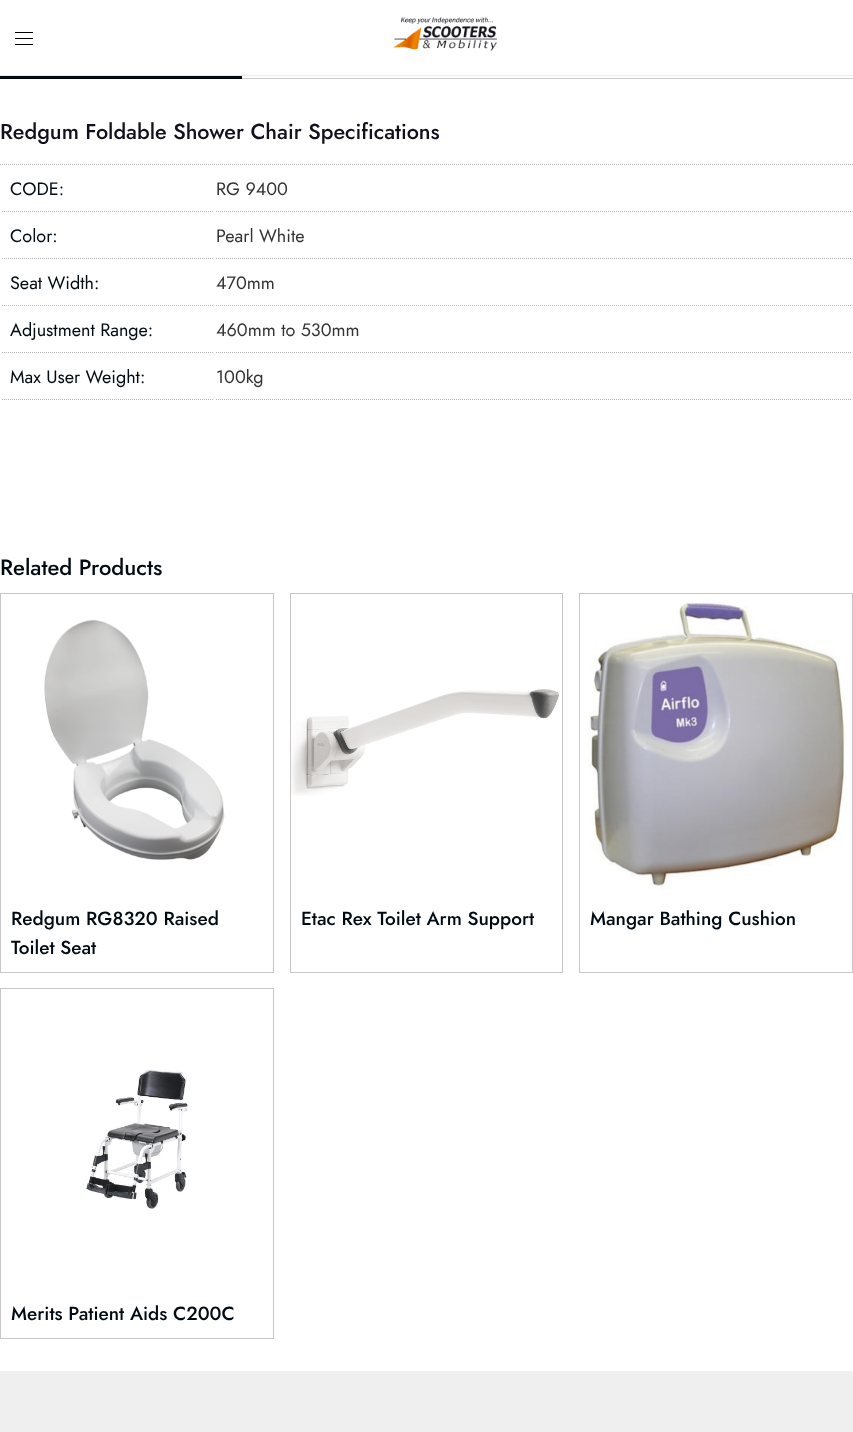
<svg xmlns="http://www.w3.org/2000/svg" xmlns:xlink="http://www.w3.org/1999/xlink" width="853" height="1432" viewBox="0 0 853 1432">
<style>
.cls-1{font:500 21.6px Jost;fill:#12101d}
.cls-2{font:18px Jost;fill:#000a12}
.cls-3{font:18px Jost;fill:#343434}
.cls-4{font:500 22px Jost;fill:#000a12}
.cls-5{font:500 19px Jost;fill:#000a12}
</style>
<rect width="100%" height="100%" fill="#ffffff"/>
<rect fill="#edebeb" x="0" y="75" width="853" height="1"/>
<rect fill="#000000" x="15" y="32" width="18" height="1"/>
<rect fill="#000000" x="15" y="38" width="18" height="1"/>
<rect fill="#000000" x="15" y="44" width="18" height="1"/>
<image xlink:href="image0.png" x="393" y="17" width="105" height="34"/>
<rect fill="#000a12" x="0" y="76" width="242" height="3"/>
<rect fill="#cdcdcd" x="242" y="78" width="611" height="1"/>
<path fill="none" stroke="#b3b3b3" stroke-dasharray="1 1" d="M0 164.5H853"/>
<path fill="none" stroke="#b3b3b3" stroke-dasharray="1 1" d="M2 211.5H214"/>
<path fill="none" stroke="#b3b3b3" stroke-dasharray="1 1" d="M216 211.5H851"/>
<path fill="none" stroke="#b3b3b3" stroke-dasharray="1 1" d="M2 258.5H214"/>
<path fill="none" stroke="#b3b3b3" stroke-dasharray="1 1" d="M216 258.5H851"/>
<path fill="none" stroke="#b3b3b3" stroke-dasharray="1 1" d="M2 305.5H214"/>
<path fill="none" stroke="#b3b3b3" stroke-dasharray="1 1" d="M216 305.5H851"/>
<path fill="none" stroke="#b3b3b3" stroke-dasharray="1 1" d="M2 352.5H214"/>
<path fill="none" stroke="#b3b3b3" stroke-dasharray="1 1" d="M216 352.5H851"/>
<path fill="none" stroke="#b3b3b3" stroke-dasharray="1 1" d="M2 399.5H214"/>
<path fill="none" stroke="#b3b3b3" stroke-dasharray="1 1" d="M216 399.5H851"/>
<rect fill="none" stroke="#c8c6c6" x="0.5" y="593.5" width="273" height="379"/>
<image xlink:href="image1.png" x="44" y="619" width="181" height="241"/>
<rect fill="none" stroke="#c8c6c6" x="290.5" y="593.5" width="272" height="379"/>
<image xlink:href="image2.png" x="291" y="689" width="268" height="107"/>
<rect fill="none" stroke="#c8c6c6" x="579.5" y="593.5" width="273" height="379"/>
<image xlink:href="image3.png" x="587" y="600" width="260" height="289"/>
<rect fill="none" stroke="#c8c6c6" x="0.5" y="988.5" width="273" height="350"/>
<image xlink:href="image4.png" x="86" y="1069" width="102" height="140"/>
<rect fill="#efefef" x="0" y="1371" width="853" height="61"/>
<text class="cls-1" x="0" y="139">Redgum Foldable Shower Chair Specifications</text>
<text class="cls-2" x="10" y="195">CODE:</text>
<text class="cls-3" x="216" y="195">RG 9400</text>
<text class="cls-2" x="10" y="242">Color:</text>
<text class="cls-3" x="216" y="242">Pearl White</text>
<text class="cls-2" x="10" y="289">Seat Width:</text>
<text class="cls-3" x="216" y="289">470mm</text>
<text class="cls-2" x="10" y="336">Adjustment Range:</text>
<text class="cls-3" x="216" y="336">460mm to 530mm</text>
<text class="cls-2" x="10" y="383">Max User Weight:</text>
<text class="cls-3" x="216" y="383">100kg</text>
<text class="cls-4" x="0" y="575">Related Products</text>
<text class="cls-5"><tspan x="11" y="925">Redgum RG8320 Raised</tspan><tspan x="11" y="954">Toilet Seat</tspan></text>
<text class="cls-5" x="301" y="925">Etac Rex Toilet Arm Support</text>
<text class="cls-5" x="590" y="925">Mangar Bathing Cushion</text>
<text class="cls-5" x="11" y="1320">Merits Patient Aids C200C</text>
</svg>
